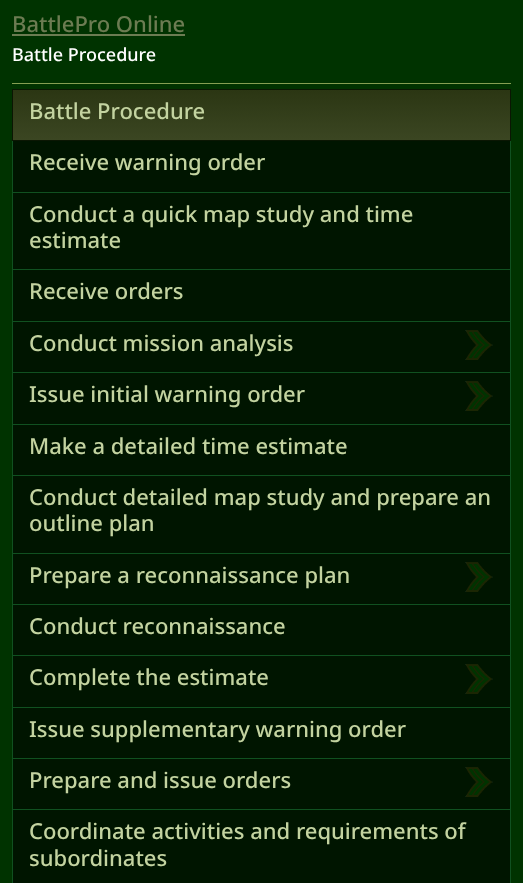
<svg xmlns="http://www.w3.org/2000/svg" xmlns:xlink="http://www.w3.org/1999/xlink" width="523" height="883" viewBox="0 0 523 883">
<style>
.cls-1{font:500 22px Noto Sans;fill:#6c7c52}
.cls-2{font:500 18px Noto Sans;fill:#ffffff}
.cls-3{font:500 22px Noto Sans;fill:#c3d3a0}
</style>
<defs>
<linearGradient id="g1" gradientUnits="userSpaceOnUse" x1="262" y1="90" x2="262" y2="140"><stop offset="0" stop-color="#2b3613"/><stop offset="1" stop-color="#3b4622"/></linearGradient>
</defs>
<rect width="100%" height="100%" fill="#003300"/>
<rect fill="#869f52" x="12" y="83" width="499" height="1"/>
<rect fill="#6c7c52" x="12" y="34" width="173" height="2"/>
<rect fill="url(#g1)" x="13" y="90" width="497" height="50"/>
<rect fill="none" stroke="#0b1603" x="12.5" y="89.5" width="498" height="51"/>
<rect fill="#001500" x="13" y="141" width="497" height="51"/>
<rect fill="#105120" x="510" y="141" width="1" height="742"/>
<rect fill="#105120" x="12" y="192" width="499" height="1"/>
<rect fill="#105120" x="12" y="141" width="1" height="52"/>
<rect fill="#001500" x="13" y="193" width="497" height="76"/>
<rect fill="#105120" x="12" y="269" width="499" height="1"/>
<rect fill="#105120" x="12" y="193" width="1" height="77"/>
<rect fill="#001500" x="13" y="270" width="497" height="51"/>
<rect fill="#105120" x="12" y="321" width="499" height="1"/>
<rect fill="#105120" x="12" y="270" width="1" height="52"/>
<rect fill="#001500" x="13" y="322" width="497" height="50"/>
<rect fill="#105120" x="12" y="372" width="499" height="1"/>
<rect fill="#105120" x="12" y="322" width="1" height="51"/>
<image xlink:href="image0.png" x="465" y="330" width="28" height="30"/>
<rect fill="#001500" x="13" y="373" width="497" height="51"/>
<rect fill="#105120" x="12" y="424" width="499" height="1"/>
<rect fill="#105120" x="12" y="373" width="1" height="52"/>
<image xlink:href="image1.png" x="465" y="381" width="28" height="30"/>
<rect fill="#001500" x="13" y="425" width="497" height="50"/>
<rect fill="#105120" x="12" y="475" width="499" height="1"/>
<rect fill="#105120" x="12" y="425" width="1" height="51"/>
<rect fill="#001500" x="13" y="476" width="497" height="77"/>
<rect fill="#105120" x="12" y="553" width="499" height="1"/>
<rect fill="#105120" x="12" y="476" width="1" height="78"/>
<rect fill="#001500" x="13" y="554" width="497" height="50"/>
<rect fill="#105120" x="12" y="604" width="499" height="1"/>
<rect fill="#105120" x="12" y="554" width="1" height="51"/>
<image xlink:href="image1.png" x="465" y="562" width="28" height="30"/>
<rect fill="#001500" x="13" y="605" width="497" height="50"/>
<rect fill="#105120" x="12" y="655" width="499" height="1"/>
<rect fill="#105120" x="12" y="605" width="1" height="51"/>
<rect fill="#001500" x="13" y="656" width="497" height="51"/>
<rect fill="#105120" x="12" y="707" width="499" height="1"/>
<rect fill="#105120" x="12" y="656" width="1" height="52"/>
<image xlink:href="image1.png" x="465" y="664" width="28" height="30"/>
<rect fill="#001500" x="13" y="708" width="497" height="50"/>
<rect fill="#105120" x="12" y="758" width="499" height="1"/>
<rect fill="#105120" x="12" y="708" width="1" height="51"/>
<rect fill="#001500" x="13" y="759" width="497" height="50"/>
<rect fill="#105120" x="12" y="809" width="499" height="1"/>
<rect fill="#105120" x="12" y="759" width="1" height="124"/>
<image xlink:href="image2.png" x="465" y="767" width="28" height="30"/>
<rect fill="#001500" x="13" y="810" width="497" height="73"/>
<text class="cls-1" x="12" y="32">BattlePro Online</text>
<text class="cls-2" x="12" y="61">Battle Procedure</text>
<text class="cls-3" x="29" y="119">Battle Procedure</text>
<text class="cls-3" x="29" y="170">Receive warning order</text>
<text class="cls-3"><tspan x="29" y="222">Conduct a quick map study and time</tspan><tspan x="29" y="248">estimate</tspan></text>
<text class="cls-3" x="29" y="299">Receive orders</text>
<text class="cls-3" x="29" y="351">Conduct mission analysis</text>
<text class="cls-3" x="29" y="402">Issue initial warning order</text>
<text class="cls-3" x="29" y="454">Make a detailed time estimate</text>
<text class="cls-3"><tspan x="29" y="505">Conduct detailed map study and prepare an</tspan><tspan x="29" y="531">outline plan</tspan></text>
<text class="cls-3" x="29" y="583">Prepare a reconnaissance plan</text>
<text class="cls-3" x="29" y="634">Conduct reconnaissance</text>
<text class="cls-3" x="29" y="685">Complete the estimate</text>
<text class="cls-3" x="29" y="737">Issue supplementary warning order</text>
<text class="cls-3" x="29" y="788">Prepare and issue orders</text>
<text class="cls-3"><tspan x="29" y="839">Coordinate activities and requirements of</tspan><tspan x="29" y="866">subordinates</tspan></text>
</svg>
